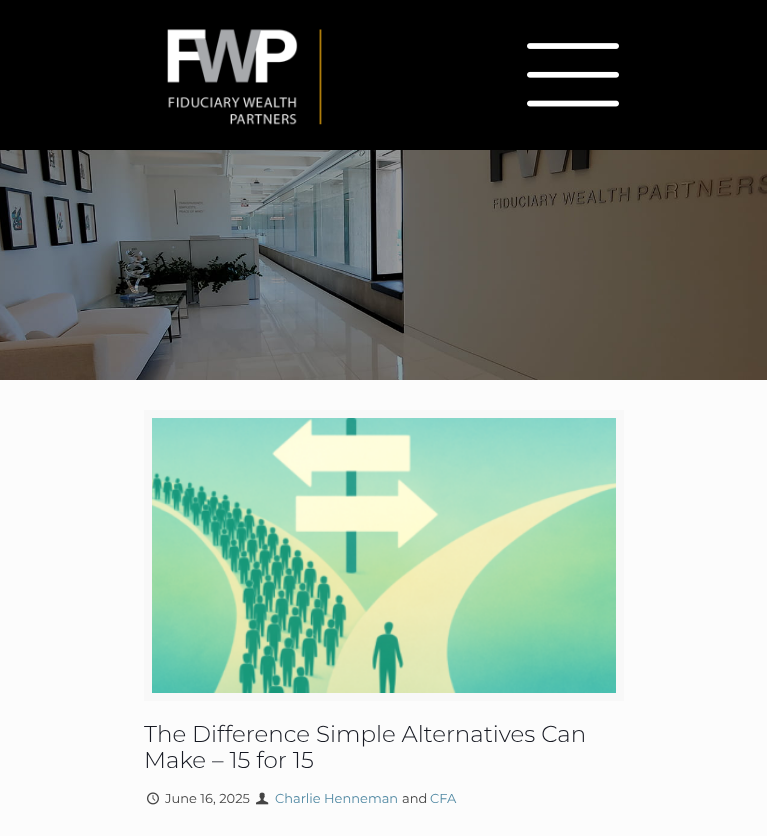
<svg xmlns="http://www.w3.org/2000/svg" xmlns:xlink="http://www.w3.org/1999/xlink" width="767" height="836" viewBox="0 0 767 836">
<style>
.cls-1{font:300 23px Montserrat;fill:#161922}
.cls-2{font:13px Montserrat;fill:#444444}
.cls-3{font:13px Montserrat;fill:#5189a3}
</style>
<rect width="100%" height="100%" fill="#fcfcfc"/>
<image xlink:href="image0.png" x="0" y="150" width="767" height="230"/>
<rect fill="#000000" x="0" y="0" width="767" height="150"/>
<image xlink:href="image1.png" x="167" y="29" width="155" height="96"/>
<image xlink:href="image2.png" x="527" y="43" width="92" height="64"/>
<rect fill="none" stroke="#f8f8f8" stroke-width="8" x="148" y="414" width="472" height="283"/>
<image xlink:href="image3.png" x="152" y="418" width="464" height="275"/>
<image xlink:href="image4.png" x="147" y="792" width="12" height="13"/>
<image xlink:href="image5.png" x="256" y="792" width="13" height="13"/>
<text class="cls-1"><tspan x="144" y="742">The Difference Simple Alternatives Can</tspan><tspan x="144" y="768">Make – 15 for 15</tspan></text>
<text class="cls-2" x="165" y="803">June 16, 2025</text>
<text class="cls-3" x="275" y="803">Charlie Henneman</text>
<text class="cls-2" x="402" y="803">and</text>
<text class="cls-3" x="430" y="803">CFA</text>
</svg>
